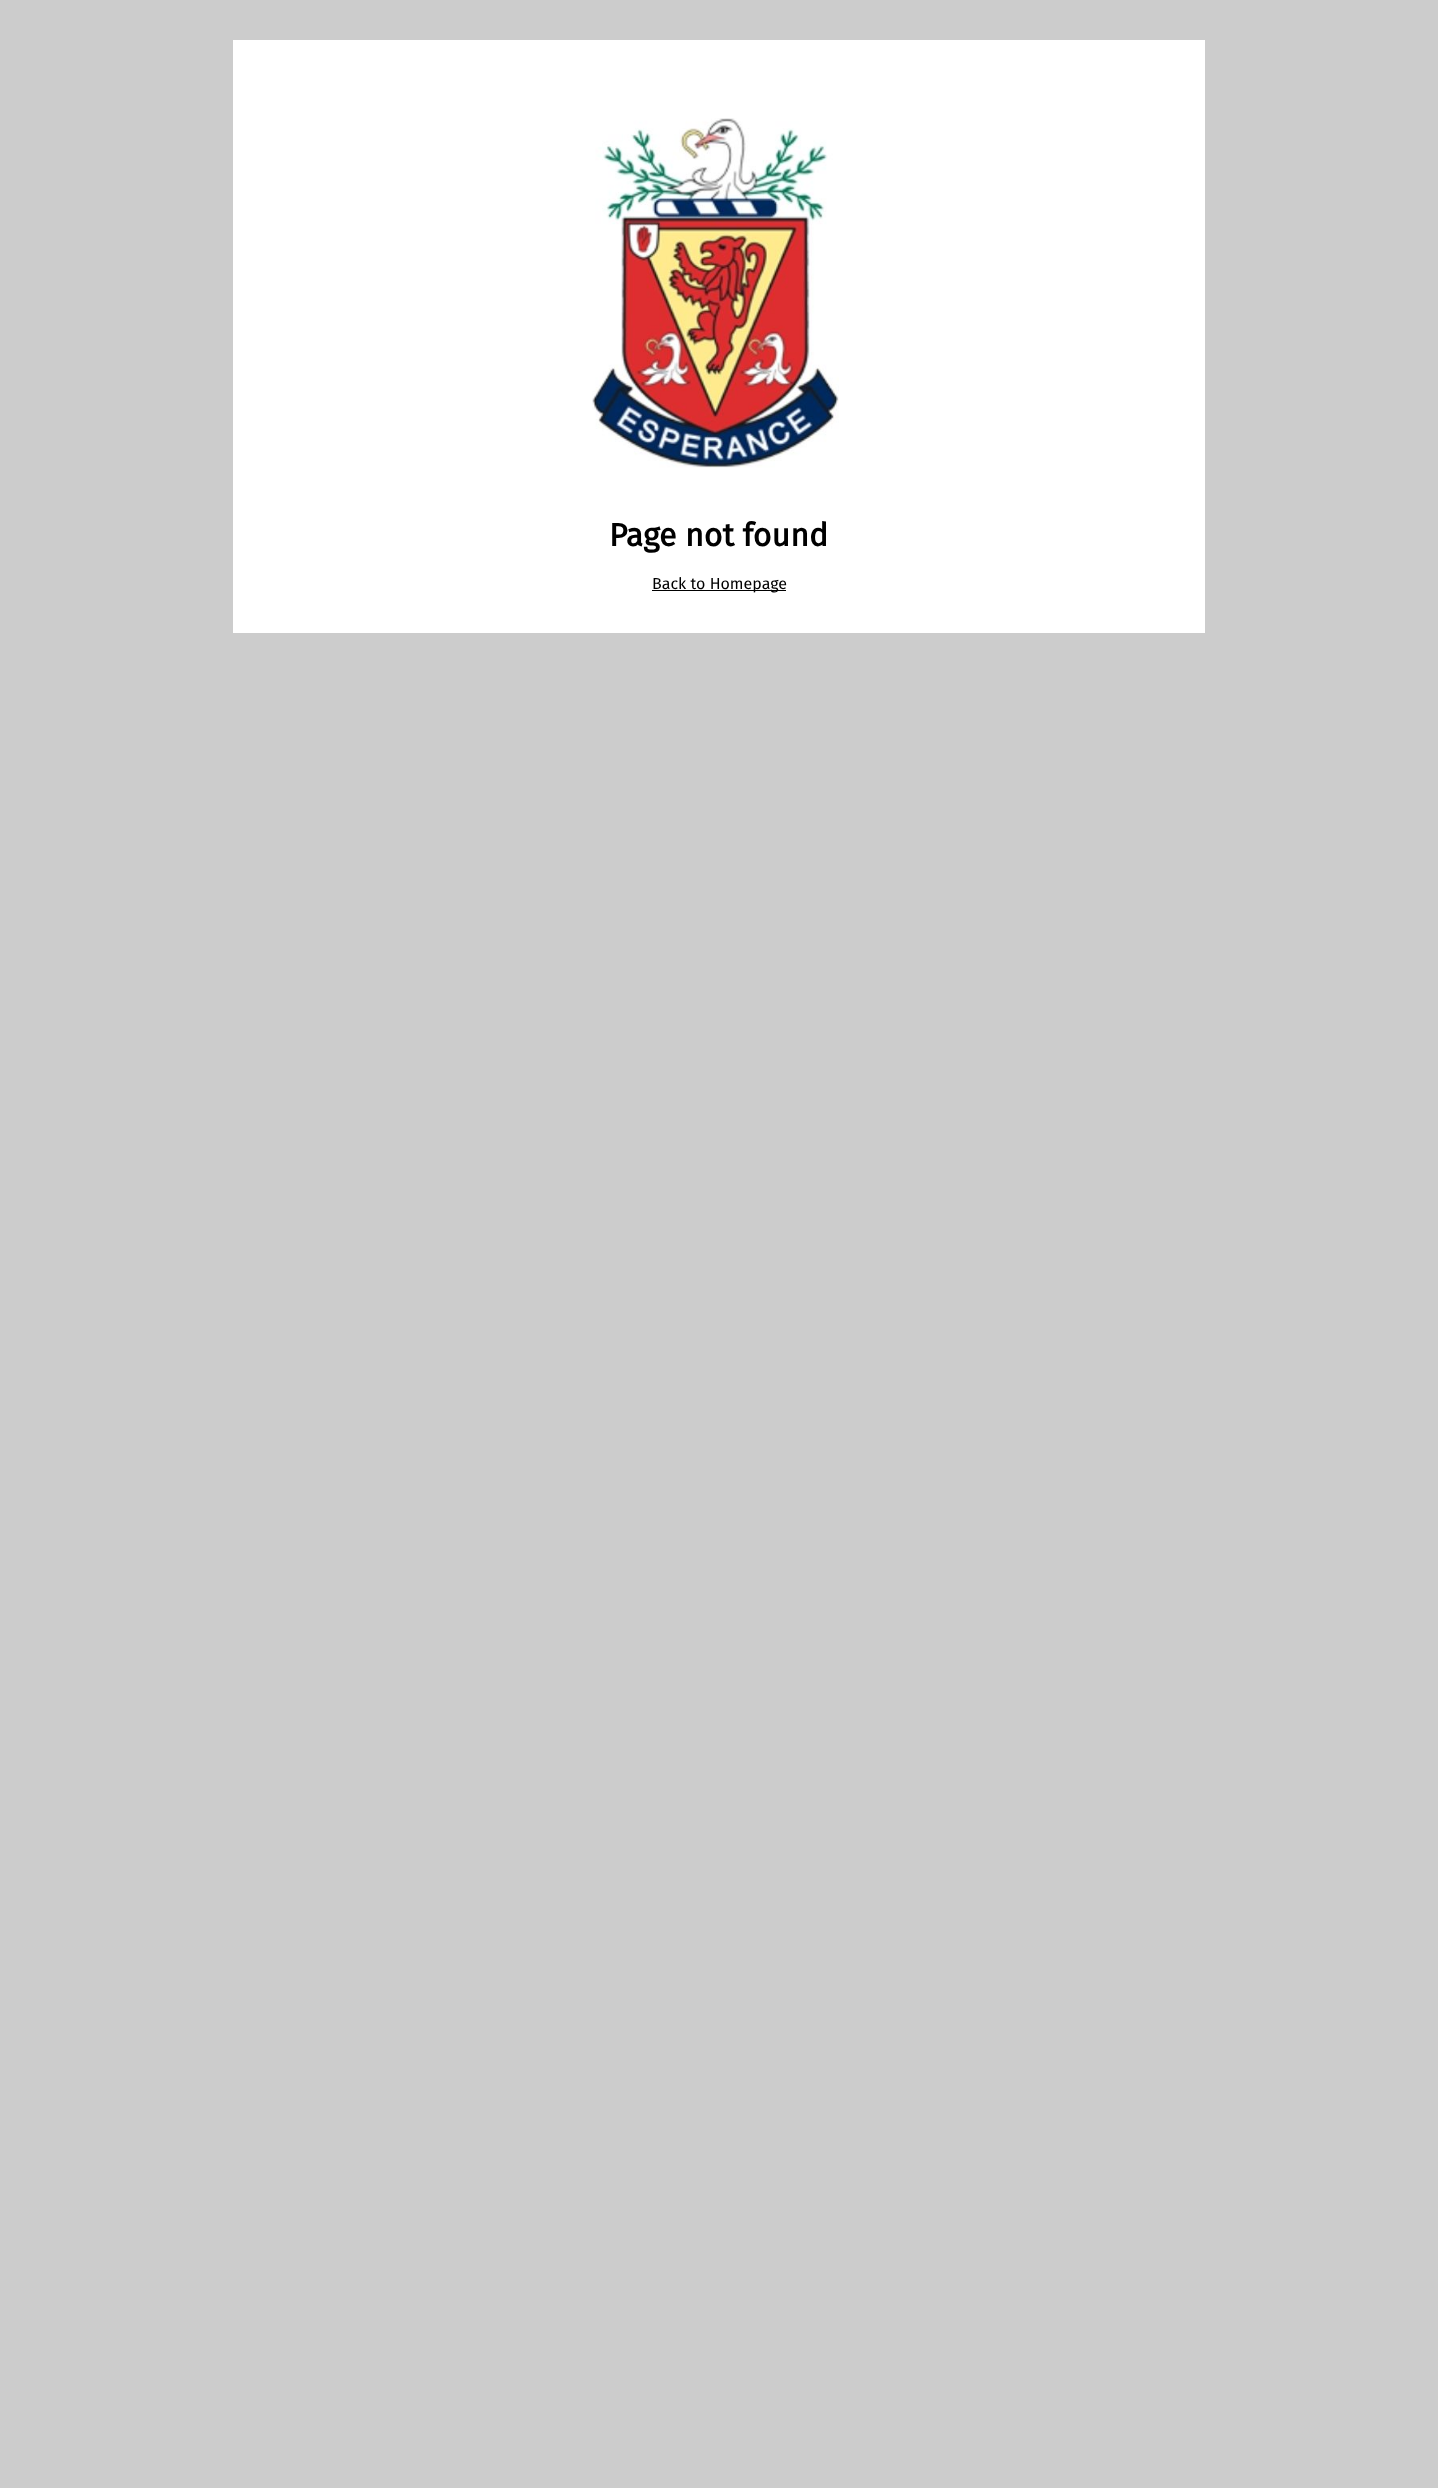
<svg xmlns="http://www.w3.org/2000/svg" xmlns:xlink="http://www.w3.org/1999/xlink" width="1438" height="2488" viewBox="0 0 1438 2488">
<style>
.cls-1{font:bold 32px Fira Sans;fill:#000000}
.cls-2{font:16px Fira Sans;fill:#000000}
</style>
<rect width="100%" height="100%" fill="#cccccc"/>
<rect fill="#ffffff" x="233" y="40" width="972" height="593"/>
<image xlink:href="image0.png" x="592" y="118" width="247" height="350"/>
<rect fill="#000000" x="652" y="590" width="134" height="1"/>
<text class="cls-1" x="609" y="546">Page not found</text>
<text class="cls-2" x="652" y="589">Back to Homepage</text>
</svg>
